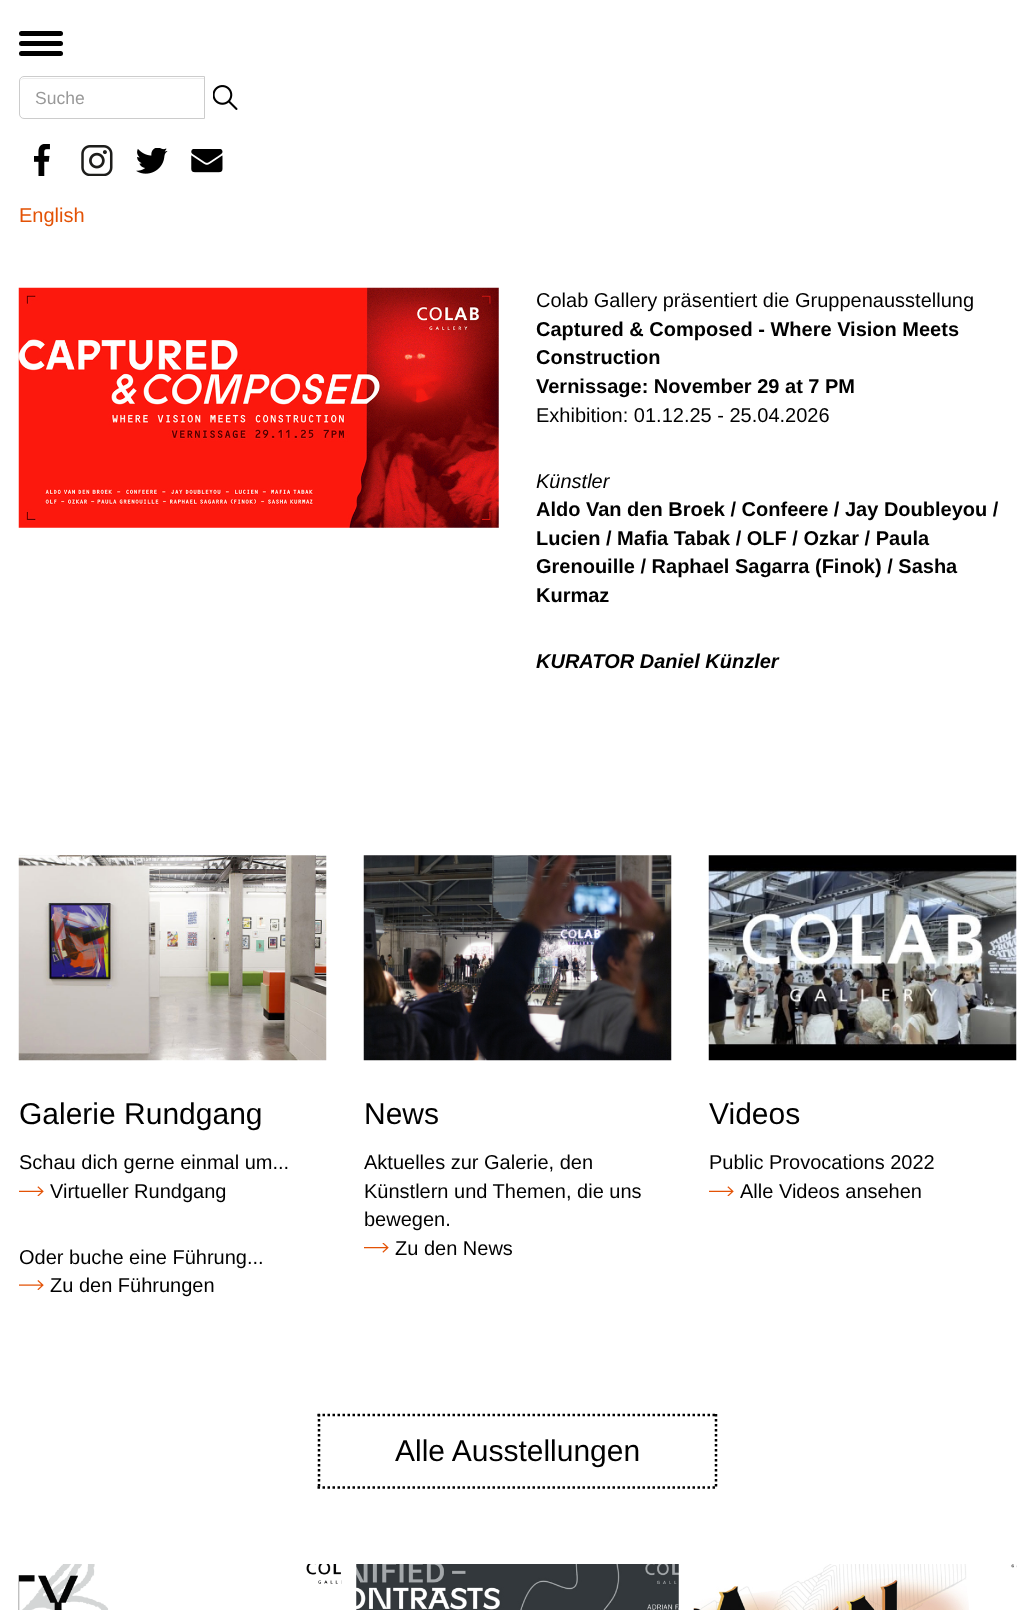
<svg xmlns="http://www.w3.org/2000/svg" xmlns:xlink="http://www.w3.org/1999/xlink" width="1035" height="1610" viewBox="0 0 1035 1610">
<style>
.cls-1{font:17.5px Liberation Sans;fill:#999999}
.cls-2{font:20px Liberation Sans;fill:#e35205}
.cls-3{font:20px Liberation Sans;fill:#000000}
.cls-4{font:bold 20px Liberation Sans;fill:#000000}
.cls-5{font:italic 20px Liberation Sans;fill:#000000}
.cls-6{font:italic bold 20px Liberation Sans;fill:#000000}
.cls-7{font:30px Liberation Sans;fill:#000000}
</style>
<rect width="100%" height="100%" fill="#ffffff"/>
<rect fill="#000000" x="19" y="31" width="44" height="5" rx="2.5"/>
<rect fill="#000000" x="19" y="41" width="44" height="5" rx="2.5"/>
<rect fill="#000000" x="19" y="51" width="44" height="5" rx="2.5"/>
<path fill="#ececec" d="M24 79H204V78H24C22 78 20 80 20 82C20 80 22 79 24 79Z"/>
<path fill="none" stroke="#cccccc" d="M24 76.5H204.5V118.5H24C21.5 118.5 19.5 116.5 19.5 114V81C19.5 78.5 21.5 76.5 24 76.5Z"/>
<image xlink:href="image0.png" x="213" y="85" width="25" height="25"/>
<image xlink:href="image1.png" x="34" y="144" width="16" height="32"/>
<image xlink:href="image2.png" x="81" y="145" width="32" height="31"/>
<image xlink:href="image3.png" x="136" y="148" width="32" height="26"/>
<image xlink:href="image4.png" x="191" y="149" width="32" height="24"/>
<image xlink:href="image5.png" x="18" y="287" width="481" height="241"/>
<image xlink:href="image6.png" x="18" y="855" width="309" height="206"/>
<image xlink:href="image7.png" x="19" y="1186" width="25" height="10"/>
<image xlink:href="image8.png" x="19" y="1280" width="25" height="10"/>
<image xlink:href="image9.png" x="363" y="855" width="309" height="206"/>
<image xlink:href="image10.png" x="364" y="1243" width="25" height="10"/>
<image xlink:href="image11.png" x="708" y="855" width="309" height="206"/>
<image xlink:href="image7.png" x="709" y="1186" width="25" height="10"/>
<path fill="none" stroke="#000000" stroke-width="2.5" stroke-dasharray="2.5 2.5" d="M317.5 1415H717.5"/>
<path fill="none" stroke="#000000" stroke-width="2.5" stroke-dasharray="2.5 2.5" d="M716 1414V1489"/>
<path fill="none" stroke="#000000" stroke-width="2.5" stroke-dasharray="2.5 2.5" d="M317.5 1487.5H717.5"/>
<path fill="none" stroke="#000000" stroke-width="2.5" stroke-dasharray="2.5 2.5" d="M319 1414V1489"/>
<image xlink:href="image12.png" x="18" y="1564" width="324" height="46"/>
<image xlink:href="image13.png" x="356" y="1564" width="323" height="46"/>
<image xlink:href="image14.png" x="693" y="1564" width="324" height="46"/>
<text class="cls-1" x="35" y="104">Suche</text>
<text class="cls-2" x="19" y="222">English</text>
<text class="cls-3" x="536" y="307">Colab Gallery präsentiert die Gruppenausstellung</text>
<text class="cls-4"><tspan x="536" y="336">Captured &amp; Composed - Where Vision Meets</tspan><tspan x="536" y="364">Construction</tspan><tspan x="536" y="393">Vernissage: November 29 at 7 PM</tspan></text>
<text class="cls-3" x="536" y="422">Exhibition: 01.12.25 - 25.04.2026</text>
<text class="cls-5" x="536" y="488">Künstler</text>
<text class="cls-4"><tspan x="536" y="516">Aldo Van den Broek / Confeere / Jay Doubleyou /</tspan><tspan x="536" y="545">Lucien / Mafia Tabak / OLF / Ozkar / Paula</tspan><tspan x="536" y="573">Grenouille / Raphael Sagarra (Finok) / Sasha</tspan><tspan x="536" y="602">Kurmaz</tspan></text>
<text class="cls-6" x="536" y="668">KURATOR Daniel Künzler</text>
<text class="cls-7" x="19" y="1124">Galerie Rundgang</text>
<text class="cls-3" x="19" y="1169">Schau dich gerne einmal um...</text>
<text class="cls-3" x="50" y="1198">Virtueller Rundgang</text>
<text class="cls-3" x="19" y="1264">Oder buche eine Führung...</text>
<text class="cls-3" x="50" y="1292">Zu den Führungen</text>
<text class="cls-7" x="364" y="1124">News</text>
<text class="cls-3"><tspan x="364" y="1169">Aktuelles zur Galerie, den</tspan><tspan x="364" y="1198">Künstlern und Themen, die uns</tspan><tspan x="364" y="1226">bewegen.</tspan></text>
<text class="cls-3" x="395" y="1255">Zu den News</text>
<text class="cls-7" x="709" y="1124">Videos</text>
<text class="cls-3" x="709" y="1169">Public Provocations 2022</text>
<text class="cls-3" x="740" y="1198">Alle Videos ansehen</text>
<text class="cls-7" x="395" y="1461">Alle Ausstellungen</text>
</svg>
